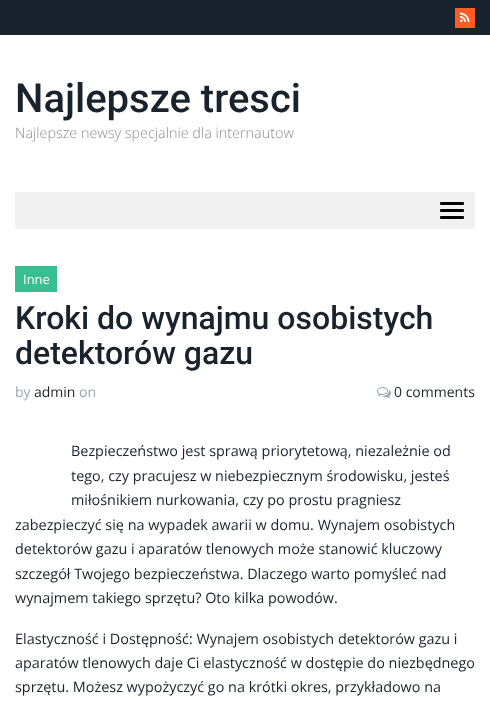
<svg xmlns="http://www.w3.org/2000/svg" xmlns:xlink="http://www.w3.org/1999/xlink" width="490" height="707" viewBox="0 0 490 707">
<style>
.cls-1{font:500 40px Roboto;fill:#19232d}
.cls-2{font:300 14.4px Open Sans;fill:#8d8e92}
.cls-3{font:13px Open Sans;fill:#ffffff}
.cls-4{font:500 32px Roboto;fill:#19232d}
.cls-5{font:14px Open Sans;fill:#97a7b5}
.cls-6{font:14px Open Sans;fill:#19232d}
.cls-7{font:14.4px Open Sans;fill:#19232d}
</style>
<rect width="100%" height="100%" fill="#ffffff"/>
<rect fill="#19232d" x="0" y="0" width="490" height="35"/>
<rect fill="#ff5b22" x="455" y="8" width="20" height="20"/>
<image xlink:href="image0.png" x="460" y="12" width="10" height="10"/>
<rect fill="#f1f1f1" x="15" y="192" width="460" height="37"/>
<rect fill="#000000" x="440" y="202" width="24" height="3" rx="1"/>
<rect fill="#000000" x="440" y="209" width="24" height="3" rx="1"/>
<rect fill="#000000" x="440" y="216" width="24" height="3" rx="1"/>
<rect fill="#37bf91" x="15" y="266" width="42" height="26"/>
<image xlink:href="image1.png" x="377" y="387" width="14" height="11"/>
<text class="cls-1" x="15" y="112">Najlepsze tresci</text>
<text class="cls-2" x="15" y="138">Najlepsze newsy specjalnie dla internautow</text>
<text class="cls-3" x="23" y="284">Inne</text>
<text class="cls-4"><tspan x="15" y="329">Kroki do wynajmu osobistych</tspan><tspan x="15" y="364">detektorów gazu</tspan></text>
<text class="cls-5" x="15" y="397">by</text>
<text class="cls-6" x="34" y="397">admin</text>
<text class="cls-5" x="79" y="397">on</text>
<text class="cls-6" x="394" y="397">0 comments</text>
<text class="cls-7"><tspan x="71" y="456">Bezpieczeństwo jest sprawą priorytetową, niezależnie od</tspan><tspan x="71" y="481">tego, czy pracujesz w niebezpiecznym środowisku, jesteś</tspan><tspan x="71" y="505">miłośnikiem nurkowania, czy po prostu pragniesz</tspan></text>
<text class="cls-7"><tspan x="15" y="530">zabezpieczyć się na wypadek awarii w domu. Wynajem osobistych</tspan><tspan x="15" y="554">detektorów gazu i aparatów tlenowych może stanowić kluczowy</tspan><tspan x="15" y="579">szczegół Twojego bezpieczeństwa. Dlaczego warto pomyśleć nad</tspan><tspan x="15" y="603">wynajmem takiego sprzętu? Oto kilka powodów.</tspan></text>
<text class="cls-7"><tspan x="15" y="644">Elastyczność i Dostępność: Wynajem osobistych detektorów gazu i</tspan><tspan x="15" y="668">aparatów tlenowych daje Ci elastyczność w dostępie do niezbędnego</tspan><tspan x="15" y="692">sprzętu. Możesz wypożyczyć go na krótki okres, przykładowo na</tspan></text>
</svg>
